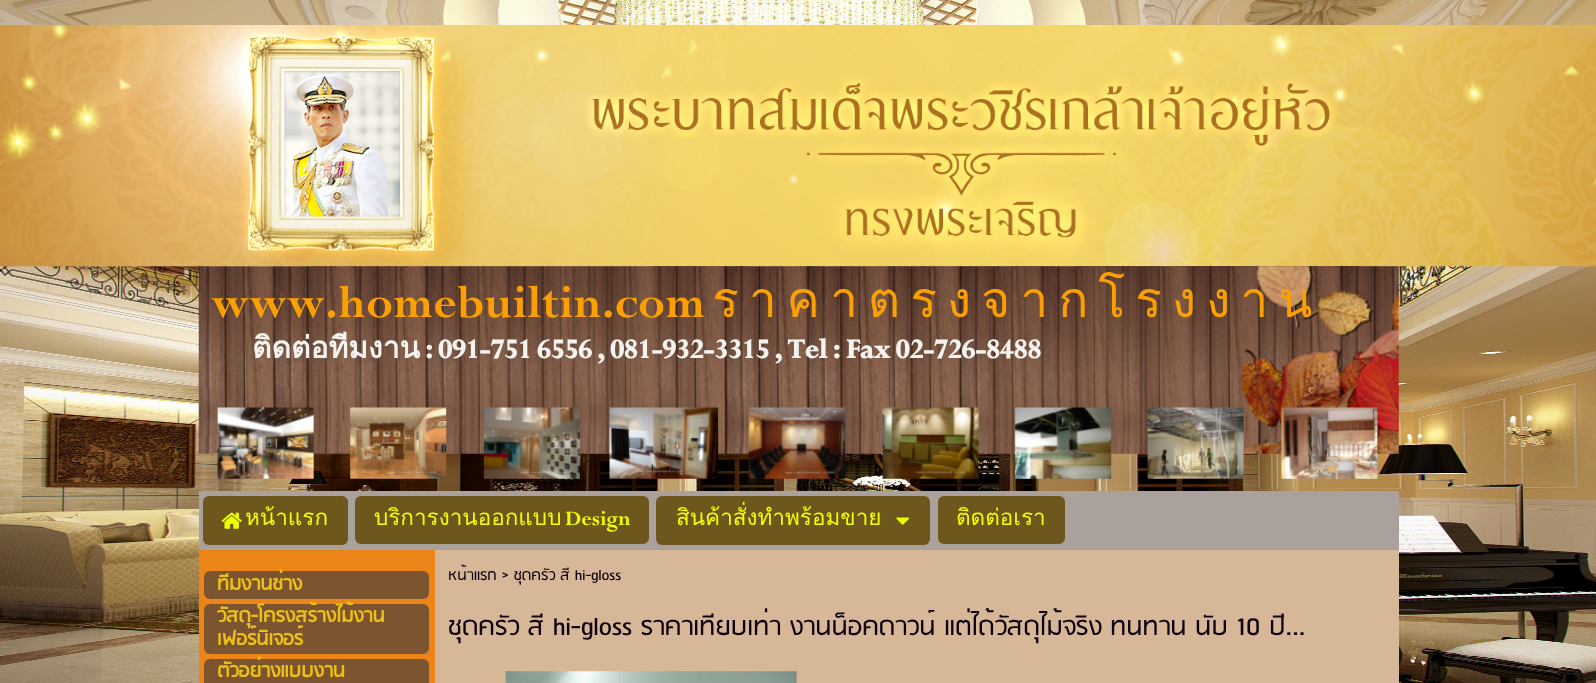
<svg xmlns="http://www.w3.org/2000/svg" xmlns:xlink="http://www.w3.org/1999/xlink" width="1596" height="683" viewBox="0 0 1596 683">
<style>
.cls-1{font:50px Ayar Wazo;fill:#faa005}
.cls-2{font:50px Loma;fill:#faa005}
.cls-3{font:bold 30px Loma;fill:#f5f3f0}
.cls-4{font:bold 30px Ayar Wazo;fill:#f5f3f0}
.cls-5{font:22.5px Loma;fill:#eeff00}
.cls-6{font:22.5px Ayar Wazo;fill:#eeff00}
.cls-7{font:bold 22.5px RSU;fill:#ebc117}
.cls-8{font:17.5px RSU;fill:#0f010f}
.cls-9{font:30px RSU;fill:#0f010f}
</style>
<rect width="100%" height="100%" fill="#ffffff"/>
<image xlink:href="image0.png" x="0" y="0" width="1596" height="683"/>
<image xlink:href="image1.png" x="0" y="25" width="1596" height="242"/>
<image xlink:href="image2.png" x="198" y="266" width="1201" height="188"/>
<image xlink:href="image3.png" x="217" y="407" width="97" height="72"/>
<image xlink:href="image4.png" x="350" y="407" width="97" height="72"/>
<image xlink:href="image5.png" x="483" y="407" width="97" height="72"/>
<image xlink:href="image6.png" x="609" y="407" width="110" height="72"/>
<image xlink:href="image7.png" x="748" y="407" width="97" height="72"/>
<image xlink:href="image8.png" x="882" y="407" width="97" height="72"/>
<image xlink:href="image9.png" x="1015" y="407" width="97" height="72"/>
<image xlink:href="image10.png" x="1147" y="407" width="97" height="72"/>
<image xlink:href="image11.png" x="1281" y="407" width="97" height="72"/>
<rect fill="#aba19c" x="199" y="491" width="1200" height="59"/>
<rect fill="#6e571c" x="203" y="496" width="145" height="49" rx="6"/>
<image xlink:href="image12.png" x="221" y="512" width="21" height="17"/>
<rect fill="#6e571c" x="355" y="496" width="294" height="48" rx="6"/>
<rect fill="#6e571c" x="656" y="496" width="274" height="49" rx="6"/>
<image xlink:href="image13.png" x="896" y="517" width="14" height="8"/>
<rect fill="#6e571c" x="938" y="496" width="127" height="48" rx="6"/>
<rect fill="#d6b798" x="435" y="550" width="964" height="133"/>
<rect fill="#eb8517" x="199" y="550" width="236" height="133"/>
<rect fill="#7d5430" x="204" y="571" width="225" height="28" rx="6"/>
<rect fill="#7d5430" x="204" y="604" width="225" height="50" rx="6"/>
<rect fill="#7d5430" x="204" y="659" width="225" height="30" rx="6"/>
<image xlink:href="image14.png" x="505" y="671" width="292" height="12"/>
<text class="cls-1" x="211" y="317">www.homebuiltin.com</text>
<text class="cls-2" x="712" y="317" word-spacing="-7">ร า ค า ต ร ง จ า ก โ ร ง ง า น</text>
<text class="cls-3" x="252" y="358">ติดต่อทีมงาน</text>
<text class="cls-4" x="425" y="358">: 091-751 6556 , 081-932-3315 , Tel : Fax 02-726-8488</text>
<text class="cls-5" x="245" y="525">หน้าแรก</text>
<text class="cls-5" x="374" y="525">บริการงานออกแบบ</text>
<text class="cls-6" x="565" y="525">Design</text>
<text class="cls-5" x="676" y="525">สินค้าสั่งทำพร้อมขาย</text>
<text class="cls-5" x="956" y="525">ติดต่อเรา</text>
<text class="cls-7"><tspan x="217" y="590">ทีมงานช่าง</tspan><tspan x="217" y="622">วัสดุ-โครงสร้างไม้งาน</tspan><tspan x="217" y="645">เฟอร์นิเจอร์</tspan><tspan x="217" y="677">ตัวอย่างแบบงาน</tspan></text>
<text class="cls-8" x="448" y="580">หน้าแรก &gt; ชุดครัว สี hi-gloss</text>
<text class="cls-9" x="448" y="635">ชุดครัว สี hi-gloss ราคาเทียบเท่า งานน็อคดาวน์ แต่ได้วัสดุไม้จริง ทนทาน นับ 10 ปี...</text>
</svg>
